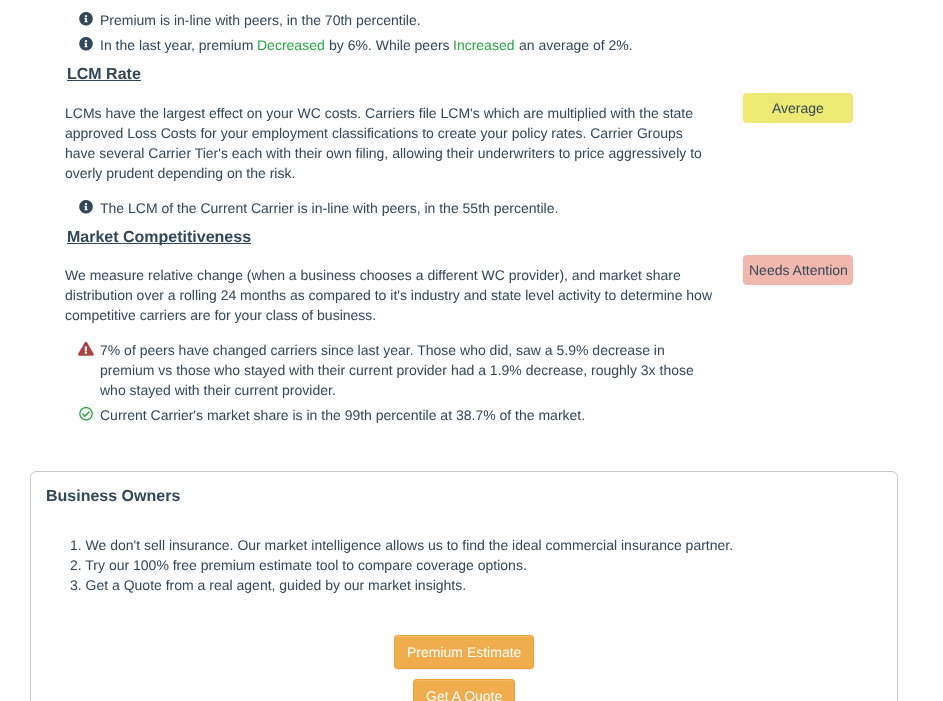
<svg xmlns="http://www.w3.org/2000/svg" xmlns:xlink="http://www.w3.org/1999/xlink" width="943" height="701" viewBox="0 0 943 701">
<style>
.cls-1{font:14px Liberation Sans;fill:#324759}
.cls-2{font:14px Liberation Sans;fill:#28a745}
.cls-3{font:bold 16px Liberation Sans;fill:#324759}
.cls-4{font:14px Liberation Sans;fill:#ffffff}
</style>
<rect width="100%" height="100%" fill="#ffffff"/>
<image xlink:href="image0.png" x="79" y="12" width="14" height="14"/>
<image xlink:href="image0.png" x="79" y="37" width="14" height="14"/>
<rect fill="#324759" x="67" y="80" width="74" height="1"/>
<image xlink:href="image0.png" x="79" y="200" width="14" height="14"/>
<rect fill="#ede972" x="743" y="93" width="110" height="30" rx="4"/>
<rect fill="#324759" x="67" y="243" width="184" height="1"/>
<image xlink:href="image1.png" x="78" y="341" width="16" height="15"/>
<image xlink:href="image2.png" x="79" y="407" width="14" height="14"/>
<rect fill="#f3b8ad" x="743" y="255" width="110" height="30" rx="4"/>
<rect fill="none" stroke="#cccccc" x="30.5" y="471.5" width="867" height="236" rx="5.5"/>
<rect fill="#000000" fill-opacity="0.07" filter="blur(0.5px)" x="394" y="636" width="140" height="34" rx="4"/>
<rect fill="#f0ad4e" x="394" y="635" width="140" height="34" rx="4"/>
<path fill="#f2b969" d="M398 637H530C532 637 533 638 533 640C533 638 533 636 531 636H397C395 636 395 638 395 640C395 638 396 637 398 637Z"/>
<rect fill="none" stroke="#eea236" x="394.5" y="635.5" width="139" height="33" rx="3.5"/>
<rect fill="#f0ad4e" x="413" y="679" width="102" height="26" rx="4"/>
<path fill="#f2b969" d="M417 681H511C513 681 514 682 514 684C514 676 498 680 495 680H433C430 680 414 676 414 684C414 682 415 681 417 681Z"/>
<rect fill="none" stroke="#eea236" x="413.5" y="679.5" width="101" height="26" rx="3.5"/>
<text class="cls-1"><tspan x="100" y="25">Premium is in-line with peers, in the 70th percentile.</tspan><tspan x="100" y="50">In the last year, premium</tspan></text>
<text class="cls-2" x="257" y="50">Decreased</text>
<text class="cls-1" x="329" y="50">by 6%. While peers</text>
<text class="cls-2" x="453" y="50">Increased</text>
<text class="cls-1" x="519" y="50">an average of 2%.</text>
<text class="cls-3" x="67" y="79">LCM Rate</text>
<text class="cls-1"><tspan x="65" y="118">LCMs have the largest effect on your WC costs. Carriers file LCM's which are multiplied with the state</tspan><tspan x="65" y="138">approved Loss Costs for your employment classifications to create your policy rates. Carrier Groups</tspan><tspan x="65" y="158">have several Carrier Tier's each with their own filing, allowing their underwriters to price aggressively to</tspan><tspan x="65" y="178">overly prudent depending on the risk.</tspan></text>
<text class="cls-1" x="100" y="213">The LCM of the Current Carrier is in-line with peers, in the 55th percentile.</text>
<text class="cls-1" x="772" y="113">Average</text>
<text class="cls-3" x="67" y="242">Market Competitiveness</text>
<text class="cls-1"><tspan x="65" y="280">We measure relative change (when a business chooses a different WC provider), and market share</tspan><tspan x="65" y="300">distribution over a rolling 24 months as compared to it's industry and state level activity to determine how</tspan><tspan x="65" y="320">competitive carriers are for your class of business.</tspan></text>
<text class="cls-1"><tspan x="100" y="355">7% of peers have changed carriers since last year. Those who did, saw a 5.9% decrease in</tspan><tspan x="100" y="375">premium vs those who stayed with their current provider had a 1.9% decrease, roughly 3x those</tspan><tspan x="100" y="395">who stayed with their current provider.</tspan><tspan x="100" y="420">Current Carrier's market share is in the 99th percentile at 38.7% of the market.</tspan></text>
<text class="cls-1" x="749" y="275">Needs Attention</text>
<text class="cls-3" x="46" y="501">Business Owners</text>
<text class="cls-1"><tspan x="70" y="550">1. We don't sell insurance. Our market intelligence allows us to find the ideal commercial insurance partner.</tspan><tspan x="70" y="570">2. Try our 100% free premium estimate tool to compare coverage options.</tspan><tspan x="70" y="590">3. Get a Quote from a real agent, guided by our market insights.</tspan></text>
<text class="cls-4" x="407" y="657">Premium Estimate</text>
<text class="cls-4" x="426" y="701">Get A Quote</text>
</svg>
